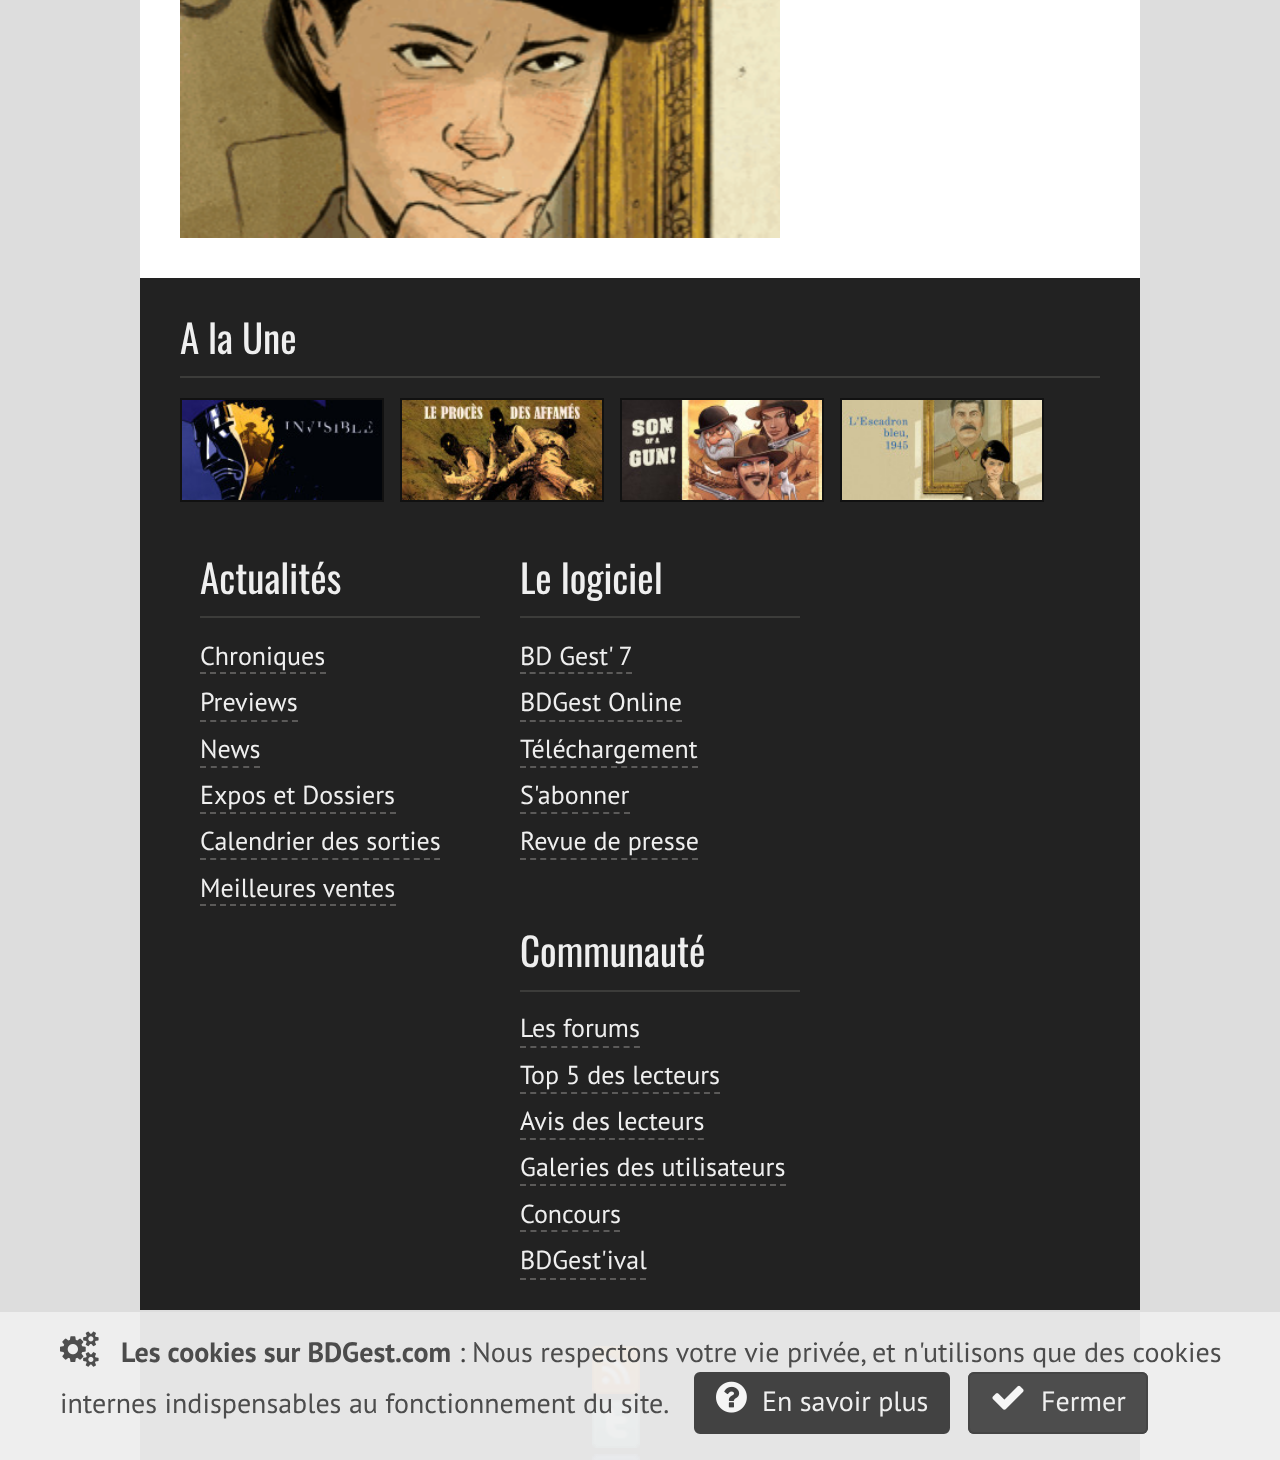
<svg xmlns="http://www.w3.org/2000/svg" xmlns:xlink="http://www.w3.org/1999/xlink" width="1280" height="1460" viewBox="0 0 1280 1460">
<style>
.cls-1{font:39px Oswald;fill:#efefef}
.cls-2{font:26px PT Sans;fill:#efefef}
.cls-3{font:bold 28px PT Sans;fill:#4c4c4c}
.cls-4{font:28px PT Sans;fill:#424242}
.cls-5{font:28px PT Sans;fill:#4c4c4c}
.cls-6{font:28px PT Sans;fill:#efefef}
</style>
<rect width="100%" height="100%" fill="#dddddd"/>
<rect fill="#eeeeee" x="0" y="1312" width="1280" height="148"/>
<rect fill="#ffffff" x="140" y="0" width="1000" height="278"/>
<image xlink:href="image0.png" x="180" y="0" width="600" height="238"/>
<rect fill="#222222" x="140" y="278" width="1000" height="1032"/>
<rect fill="#e5e5e5" x="140" y="1312" width="1000" height="148"/>
<rect fill="#3c3c3a" x="180" y="376" width="920" height="2"/>
<rect fill="none" stroke="#111111" stroke-width="2" x="181" y="399" width="202" height="102"/>
<image xlink:href="image1.png" x="182" y="400" width="200" height="100"/>
<rect fill="none" stroke="#111111" stroke-width="2" x="401" y="399" width="202" height="102"/>
<image xlink:href="image2.png" x="402" y="400" width="200" height="100"/>
<rect fill="none" stroke="#111111" stroke-width="2" x="621" y="399" width="202" height="102"/>
<image xlink:href="image3.png" x="622" y="400" width="200" height="100"/>
<rect fill="none" stroke="#111111" stroke-width="2" x="841" y="399" width="202" height="102"/>
<image xlink:href="image4.png" x="842" y="400" width="200" height="100"/>
<rect fill="#3c3c3a" x="200" y="616" width="280" height="2"/>
<path fill="none" stroke="#5b5a59" stroke-width="2" stroke-dasharray="6 4" d="M200 673H326"/>
<path fill="none" stroke="#5b5a59" stroke-width="2" stroke-dasharray="6 4.22" d="M200 721H298"/>
<path fill="none" stroke="#5b5a59" stroke-width="2" stroke-dasharray="6 4.8" d="M200 767H260"/>
<path fill="none" stroke="#5b5a59" stroke-width="2" stroke-dasharray="6 4" d="M200 813H396"/>
<path fill="none" stroke="#5b5a59" stroke-width="2" stroke-dasharray="6 4.18" d="M200 859H440"/>
<path fill="none" stroke="#5b5a59" stroke-width="2" stroke-dasharray="6 4" d="M200 905H396"/>
<rect fill="#3c3c3a" x="520" y="616" width="280" height="2"/>
<path fill="none" stroke="#5b5a59" stroke-width="2" stroke-dasharray="6 3.64" d="M520 673H632"/>
<path fill="none" stroke="#5b5a59" stroke-width="2" stroke-dasharray="6 3.76" d="M520 721H682"/>
<path fill="none" stroke="#5b5a59" stroke-width="2" stroke-dasharray="6 4.12" d="M520 767H698"/>
<path fill="none" stroke="#5b5a59" stroke-width="2" stroke-dasharray="6 4.4" d="M520 813H630"/>
<path fill="none" stroke="#5b5a59" stroke-width="2" stroke-dasharray="6 4.12" d="M520 859H698"/>
<rect fill="#3c3c3a" x="520" y="990" width="280" height="2"/>
<path fill="none" stroke="#5b5a59" stroke-width="2" stroke-dasharray="6 4.36" d="M520 1047H640"/>
<path fill="none" stroke="#5b5a59" stroke-width="2" stroke-dasharray="6 4.22" d="M520 1093H720"/>
<path fill="none" stroke="#5b5a59" stroke-width="2" stroke-dasharray="6 3.88" d="M520 1139H704"/>
<path fill="none" stroke="#5b5a59" stroke-width="2" stroke-dasharray="6 4" d="M520 1185H786"/>
<path fill="none" stroke="#5b5a59" stroke-width="2" stroke-dasharray="6 4.44" d="M520 1231H620"/>
<path fill="none" stroke="#5b5a59" stroke-width="2" stroke-dasharray="6 4" d="M520 1279H646"/>
<image xlink:href="image5.png" x="592" y="1346" width="48" height="48"/>
<image xlink:href="image6.png" x="592" y="1400" width="48" height="48"/>
<image xlink:href="image7.png" x="592" y="1454" width="48" height="6"/>
<image xlink:href="image8.png" x="60" y="1331" width="39" height="36"/>
<rect fill="#424242" stroke="#424242" stroke-width="2" x="695" y="1373" width="254" height="60" rx="5"/>
<image xlink:href="image9.png" x="716" y="1381" width="31" height="32"/>
<rect fill="#444444" fill-opacity="0.95" x="968" y="1372" width="180" height="62" rx="6"/>
<rect fill="none" stroke="#444444" stroke-opacity="0.95" stroke-width="2" x="969" y="1373" width="178" height="60" rx="5"/>
<image xlink:href="image10.png" x="992" y="1385" width="32" height="25"/>
<text class="cls-1" x="180" y="354">A la Une</text>
<text class="cls-1" x="200" y="594">Actualités</text>
<text class="cls-2"><tspan x="200" y="665">Chroniques</tspan><tspan x="200" y="711">Previews</tspan><tspan x="200" y="758">News</tspan><tspan x="200" y="804">Expos et Dossiers</tspan><tspan x="200" y="850">Calendrier des sorties</tspan><tspan x="200" y="897">Meilleures ventes</tspan></text>
<text class="cls-1" x="520" y="594">Le logiciel</text>
<text class="cls-2"><tspan x="520" y="665">BD Gest' 7</tspan><tspan x="520" y="711">BDGest Online</tspan><tspan x="520" y="758">Téléchargement</tspan><tspan x="520" y="804">S'abonner</tspan><tspan x="520" y="850">Revue de presse</tspan></text>
<text class="cls-1" x="520" y="967">Communauté</text>
<text class="cls-2"><tspan x="520" y="1037">Les forums</tspan><tspan x="520" y="1084">Top 5 des lecteurs</tspan><tspan x="520" y="1130">Avis des lecteurs</tspan><tspan x="520" y="1176">Galeries des utilisateurs</tspan><tspan x="520" y="1223">Concours</tspan><tspan x="520" y="1269">BDGest'ival</tspan></text>
<text class="cls-3" x="121" y="1362">Les cookies sur BDGest.com</text>
<text class="cls-4" x="459" y="1362">:</text>
<text class="cls-5" x="472" y="1362">Nous respectons votre vie privée, et n'utilisons que des cookies</text>
<text class="cls-5" x="60" y="1413">internes indispensables au fonctionnement du site.</text>
<text class="cls-6" x="762" y="1411">En savoir plus</text>
<text class="cls-6" x="1041" y="1411">Fermer</text>
</svg>
